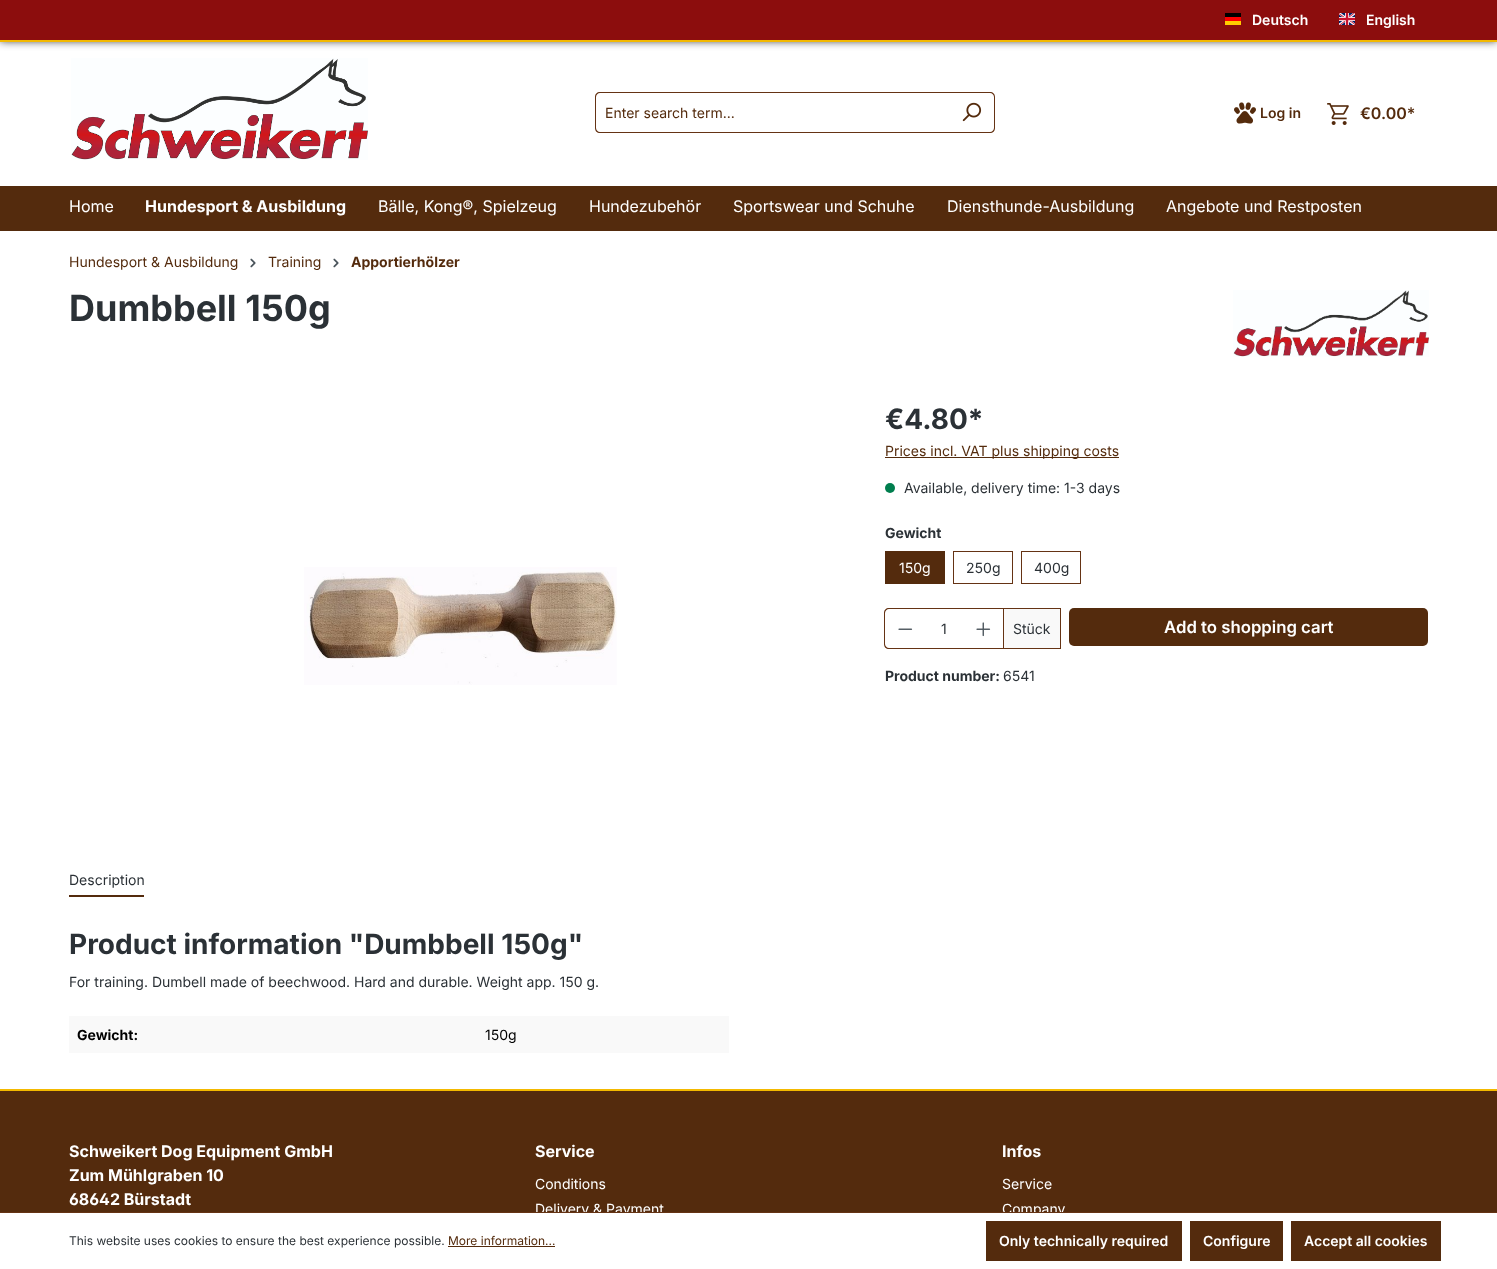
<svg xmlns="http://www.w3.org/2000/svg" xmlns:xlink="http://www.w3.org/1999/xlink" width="1497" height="1269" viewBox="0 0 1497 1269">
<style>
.cls-1{font:600 14px Inter;fill:#ffffff}
.cls-2{font:14px Inter;fill:#542b0d}
.cls-3{font:600 14px Inter;fill:#542b0d}
.cls-4{font:600 16px Inter;fill:#542b0d}
.cls-5{font:16px Inter;fill:#ffffff}
.cls-6{font:bold 16px Inter;fill:#ffffff}
.cls-7{font:bold 14px Inter;fill:#542b0d}
.cls-8{font:bold 36px Inter;fill:#2b3136}
.cls-9{font:bold 28px Inter;fill:#2b3136}
.cls-10{font:14px Inter;fill:#2b3136}
.cls-11{font:bold 14px Inter;fill:#2b3136}
.cls-12{font:14px Inter;fill:#ffffff}
.cls-13{font:600 16.75px Inter;fill:#ffffff}
.cls-14{font:bold 14px Inter;fill:#000000}
.cls-15{font:14px Inter;fill:#000000}
.cls-16{font:bold 16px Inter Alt;fill:#ffffff}
.cls-17{font:12px Inter;fill:#2b3136}
.cls-18{font:12px Inter;fill:#542b0d}
</style>
<rect width="100%" height="100%" fill="#ffffff"/>
<rect fill="#333333" filter="blur(4px)" x="0" y="-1" width="1497" height="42"/>
<rect fill="#8c0d0d" x="0" y="0" width="1497" height="40"/>
<rect fill="#f3b900" x="0" y="40" width="1497" height="2"/>
<rect fill="#000000" x="1225" y="13" width="16" height="4"/>
<rect fill="#ff0000" x="1225" y="17" width="16" height="4"/>
<rect fill="#ffcc00" x="1225" y="21" width="16" height="4"/>
<image xlink:href="image0.png" x="1339" y="13" width="16" height="12"/>
<image xlink:href="image1.png" x="71" y="58" width="297" height="102"/>
<path fill="#653314" fill-rule="evenodd" d="M600 92H949V133H600C597 133 595 131 595 128V97C595 94 597 92 600 92ZM600 93H949V132H600C598 132 596 130 596 128V97C596 95 598 93 600 93Z"/>
<path fill="#653314" fill-rule="evenodd" d="M948 92H990C993 92 995 94 995 97V128C995 131 993 133 990 133H948ZM948 93H990C992 93 994 95 994 97V128C994 130 992 132 990 132H948Z"/>
<image xlink:href="image2.png" x="962" y="102" width="20" height="20"/>
<image xlink:href="image3.png" x="1234" y="102" width="22" height="22"/>
<image xlink:href="image4.png" x="1327" y="103" width="22" height="22"/>
<rect fill="#542b0d" x="0" y="186" width="1497" height="45"/>
<image xlink:href="image5.png" x="250" y="258" width="6" height="10"/>
<image xlink:href="image5.png" x="333" y="258" width="6" height="10"/>
<image xlink:href="image6.png" x="1233" y="290" width="196" height="67"/>
<image xlink:href="image7.png" x="304" y="567" width="313" height="118"/>
<rect fill="#542b0d" x="885" y="457" width="234" height="1"/>
<circle fill="#007e4e" cx="890" cy="488" r="5"/>
<rect fill="#542b0d" x="885" y="551" width="60" height="33"/>
<rect fill="none" stroke="#653314" x="953.5" y="551.5" width="59" height="32"/>
<rect fill="none" stroke="#653314" x="1021.5" y="551.5" width="59" height="32"/>
<rect fill="#f9f9f9" stroke="#653314" x="1003.5" y="608.5" width="57" height="40"/>
<rect fill="#653314" x="925" y="608" width="79" height="1"/>
<rect fill="#653314" x="925" y="648" width="79" height="1"/>
<path fill="#653314" fill-rule="evenodd" d="M889 608H926V649H889C886 649 884 647 884 644V613C884 610 886 608 889 608ZM889 609H926V648H889C887 648 885 646 885 644V613C885 611 887 609 889 609Z"/>
<image xlink:href="image8.png" x="898" y="628" width="15" height="2"/>
<image xlink:href="image9.png" x="976" y="622" width="15" height="15"/>
<rect fill="#542b0d" x="1069" y="608" width="359" height="38" rx="5"/>
<rect fill="#542b0d" x="69" y="895" width="75" height="2"/>
<rect fill="#f9f9f9" x="69" y="1016" width="660" height="37"/>
<rect fill="#542b0d" x="0" y="1091" width="1497" height="121"/>
<rect fill="#f3b900" x="0" y="1089" width="1497" height="2"/>
<rect fill="#542b0d" x="448" y="1246" width="107" height="1"/>
<rect fill="#542b0d" x="986" y="1221" width="196" height="40"/>
<rect fill="#542b0d" x="1190" y="1221" width="93" height="40"/>
<rect fill="#542b0d" x="1291" y="1221" width="150" height="40"/>
<text class="cls-1" x="1252" y="25">Deutsch</text>
<text class="cls-1" x="1366" y="25">English</text>
<text class="cls-2" x="605" y="118">Enter search term...</text>
<text class="cls-3" x="1260" y="118">Log in</text>
<text class="cls-4" x="1360" y="119">€0.00*</text>
<text class="cls-5" x="69" y="212">Home</text>
<text class="cls-6" x="145" y="212">Hundesport &amp; Ausbildung</text>
<text class="cls-5" x="378" y="212">Bälle, Kong®, Spielzeug</text>
<text class="cls-5" x="589" y="212">Hundezubehör</text>
<text class="cls-5" x="733" y="212">Sportswear und Schuhe</text>
<text class="cls-5" x="947" y="212">Diensthunde-Ausbildung</text>
<text class="cls-5" x="1166" y="212">Angebote und Restposten</text>
<text class="cls-2" x="69" y="267">Hundesport &amp; Ausbildung</text>
<text class="cls-2" x="268" y="267">Training</text>
<text class="cls-7" x="351" y="267">Apportierhölzer</text>
<text class="cls-8" x="69" y="321">Dumbbell 150g</text>
<text class="cls-9" x="885" y="429">€4.80*</text>
<text class="cls-2" x="885" y="456">Prices incl. VAT plus shipping costs</text>
<text class="cls-10" x="904" y="493">Available, delivery time: 1-3 days</text>
<text class="cls-11" x="885" y="538">Gewicht</text>
<text class="cls-12" x="899" y="573">150g</text>
<text class="cls-10" x="966" y="573">250g</text>
<text class="cls-10" x="1034" y="573">400g</text>
<text class="cls-10" x="941" y="634">1</text>
<text class="cls-10" x="1013" y="634">Stück</text>
<text class="cls-13" x="1164" y="633">Add to shopping cart</text>
<text class="cls-11" x="885" y="681">Product number:</text>
<text class="cls-10" x="1003" y="681">6541</text>
<text class="cls-10" x="69" y="885">Description</text>
<text class="cls-9" x="69" y="954">Product information "Dumbbell 150g"</text>
<text class="cls-10" x="69" y="987">For training. Dumbell made of beechwood. Hard and durable. Weight app. 150 g.</text>
<text class="cls-14" x="77" y="1040">Gewicht:</text>
<text class="cls-15" x="485" y="1040">150g</text>
<text class="cls-6"><tspan x="69" y="1157">Schweikert Dog Equipment GmbH</tspan><tspan x="69" y="1181">Zum Mühlgraben 10</tspan></text>
<text class="cls-16" x="69" y="1205">68642 Bürstadt</text>
<text class="cls-6" x="535" y="1157">Service</text>
<text class="cls-12"><tspan x="535" y="1189">Conditions</tspan><tspan x="535" y="1214">Delivery &amp; Payment</tspan></text>
<text class="cls-6" x="1002" y="1157">Infos</text>
<text class="cls-12"><tspan x="1002" y="1189">Service</tspan><tspan x="1002" y="1214">Company</tspan></text>
<rect fill="#653314" x="0" y="1212" width="1497" height="1"/>
<text class="cls-17" x="69" y="1245">This website uses cookies to ensure the best experience possible.</text>
<text class="cls-18" x="448" y="1245">More information...</text>
<text class="cls-1" x="999" y="1246">Only technically required</text>
<text class="cls-1" x="1203" y="1246">Configure</text>
<text class="cls-1" x="1304" y="1246">Accept all cookies</text>
</svg>
